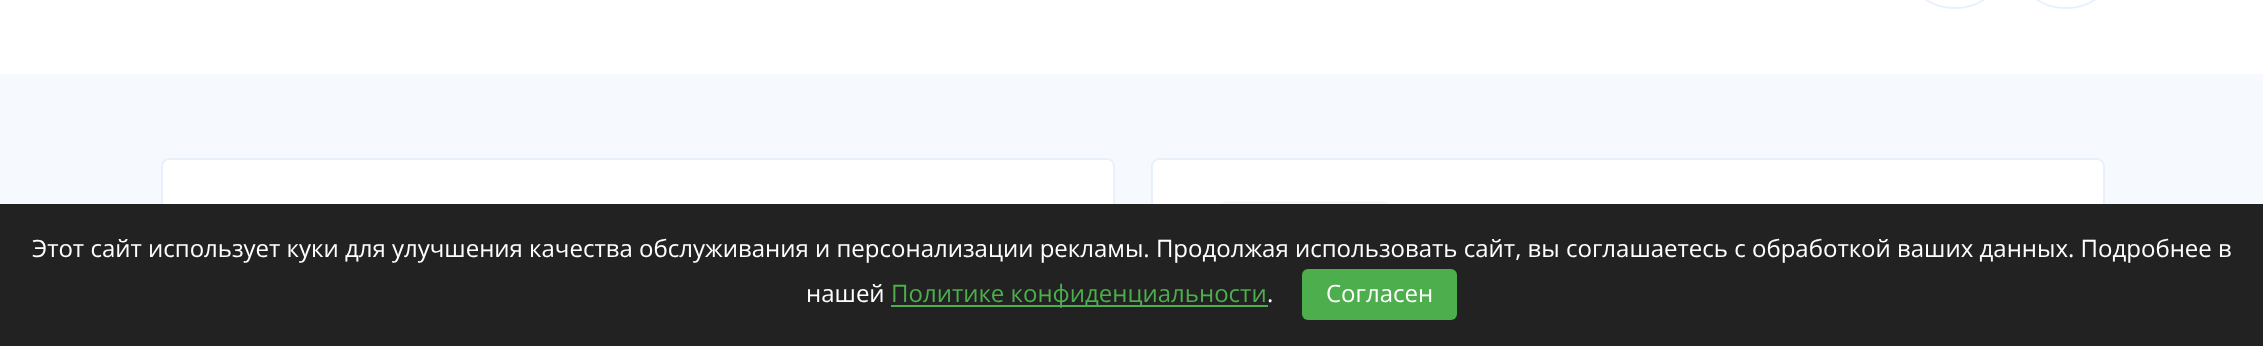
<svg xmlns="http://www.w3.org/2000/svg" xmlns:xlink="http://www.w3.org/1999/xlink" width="2263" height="346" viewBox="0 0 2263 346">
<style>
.cls-1{font:24px Open Sans;fill:#ffffff}
.cls-2{font:24px Open Sans;fill:#4cae4c}
</style>
<rect width="100%" height="100%" fill="#ffffff"/>
<rect fill="none" stroke="#e8f1fb" stroke-width="2" x="1917" y="-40" width="76" height="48" rx="38"/>
<rect fill="none" stroke="#e8f1fb" stroke-width="2" x="2028" y="-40" width="76" height="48" rx="38"/>
<rect fill="#f6faff" x="0" y="74" width="2263" height="130"/>
<rect fill="#ffffff" stroke="#e8f1fb" stroke-width="2" x="162" y="159" width="952" height="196" rx="7"/>
<rect fill="#ffffff" stroke="#e8f1fb" stroke-width="2" x="1152" y="159" width="952" height="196" rx="7"/>
<rect fill="#f8f8f8" x="1211" y="201" width="189" height="39" rx="19.5"/>
<rect fill="#222222" x="0" y="204" width="2263" height="142"/>
<rect fill="#4cae4c" x="891" y="305" width="377" height="2"/>
<rect fill="#4cae4c" x="1302" y="269" width="155" height="51" rx="6"/>
<text class="cls-1" x="32" y="257">Этот сайт использует куки для улучшения качества обслуживания и персонализации рекламы. Продолжая использовать сайт, вы соглашаетесь с обработкой ваших данных. Подробнее в</text>
<text class="cls-1" x="806" y="302">нашей</text>
<text class="cls-2" x="891" y="302">Политике конфиденциальности</text>
<text class="cls-1" x="1267" y="302">.</text>
<text class="cls-1" x="1326" y="302">Согласен</text>
</svg>
